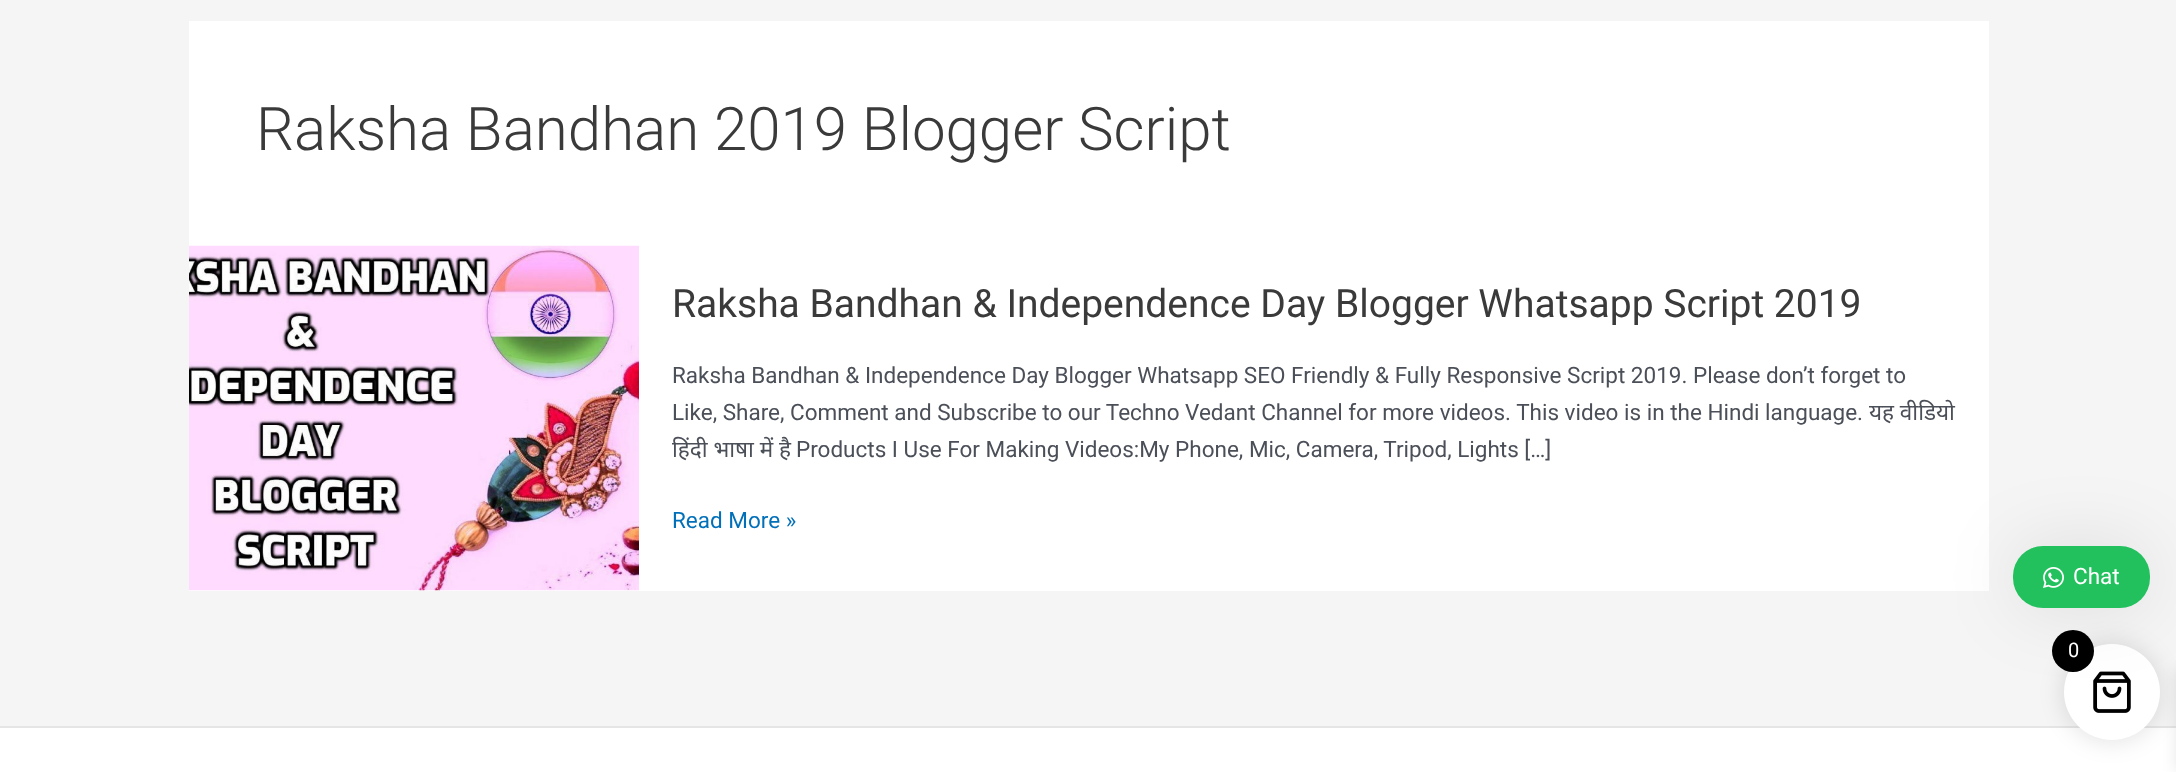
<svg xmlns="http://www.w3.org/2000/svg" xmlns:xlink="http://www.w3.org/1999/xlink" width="2176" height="772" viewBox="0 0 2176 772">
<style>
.cls-1{font:300 60px Roboto;fill:#3a3a3a}
.cls-2{font:39px Roboto;fill:#3a3a3a}
.cls-3{font:22.5px Roboto;fill:#4b4f58}
.cls-4{font:22.5px Noto Sans;fill:#4b4f58}
.cls-5{font:22.5px Roboto;fill:#0170b9}
.cls-6{font:22.5px Roboto;fill:#ffffff}
.cls-7{font:20px Roboto;fill:#ffffff}
</style>
<rect width="100%" height="100%" fill="#f5f5f5"/>
<rect fill="#ffffff" x="189" y="21" width="1800" height="570"/>
<image xlink:href="image0.png" x="189" y="245" width="450" height="346"/>
<rect fill="#ffffff" x="0" y="728" width="2176" height="44"/>
<rect fill="#e5e5e5" x="0" y="726" width="2176" height="2"/>
<rect fill="#000000" fill-opacity="0.1" filter="blur(11px)" x="2061" y="641" width="102" height="102" rx="51"/>
<rect fill="#000000" fill-opacity="0.1" filter="blur(7.5px)" x="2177" y="668" width="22" height="103"/>
<circle fill="#ffffff" cx="2112" cy="692" r="48"/>
<image xlink:href="image2.png" x="2093" y="671" width="38" height="42"/>
<circle fill="#000000" cx="2073" cy="651" r="21"/>
<rect fill="#000000" fill-opacity="0.1" filter="blur(37.5px)" x="2013" y="546" width="137" height="62" rx="30"/>
<rect fill="#22c15e" x="2013" y="546" width="137" height="62" rx="30"/>
<image xlink:href="image1.png" x="2043" y="567" width="21" height="21"/>
<text class="cls-1" x="256" y="150">Raksha Bandhan 2019 Blogger Script</text>
<text class="cls-2" x="672" y="317">Raksha Bandhan &amp; Independence Day Blogger Whatsapp Script 2019</text>
<text class="cls-3"><tspan x="672" y="383">Raksha Bandhan &amp; Independence Day Blogger Whatsapp SEO Friendly &amp; Fully Responsive Script 2019. Please don’t forget to</tspan><tspan x="672" y="420">Like, Share, Comment and Subscribe to our Techno Vedant Channel for more videos. This video is in the Hindi language.</tspan></text>
<text class="cls-4" x="1869" y="420">यह वीडियो</text>
<text class="cls-4" x="672" y="457">हिंदी भाषा में है</text>
<text class="cls-3" x="796" y="457">Products I Use For Making Videos:My Phone, Mic, Camera, Tripod, Lights […]</text>
<text class="cls-5" x="672" y="528">Read More »</text>
<text class="cls-6" x="2073" y="584">Chat</text>
<text class="cls-7" x="2068" y="657">0</text>
</svg>
